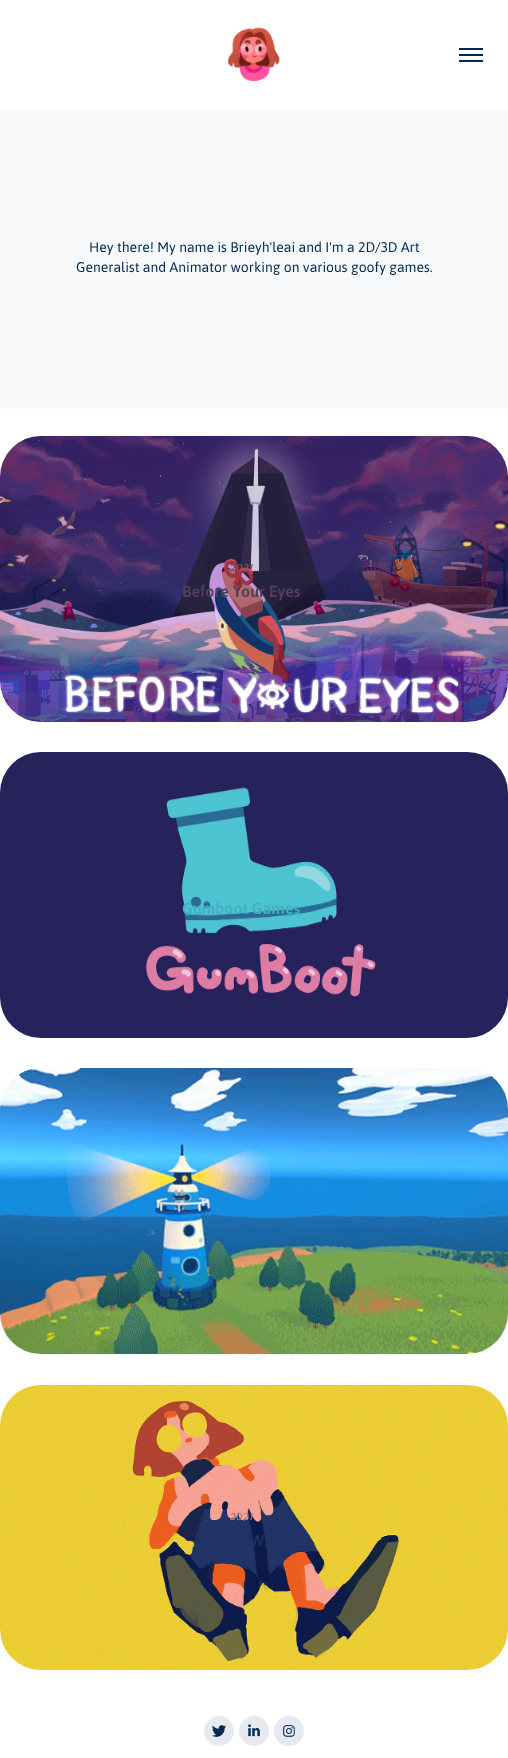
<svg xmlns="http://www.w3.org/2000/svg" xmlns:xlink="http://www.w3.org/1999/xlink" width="508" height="1758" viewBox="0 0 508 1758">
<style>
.cls-1{font:14px Asap;fill:#012b55}
.cls-2{font:italic 500 14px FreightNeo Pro;fill:#8c4e65}
.cls-3{font:600 16px Asap;fill:#533e5c}
.cls-4{font:600 16px Asap;fill:#45aec3}
.cls-5{font:italic 500 14px FreightNeo Pro;fill:#a2757f}
.cls-6{font:600 16px Asap;fill:#1e2f61}
</style>
<rect width="100%" height="100%" fill="#ffffff"/>
<image xlink:href="image0.png" x="227" y="27" width="53" height="55"/>
<rect fill="#012b55" x="459" y="48" width="24" height="2"/>
<rect fill="#012b55" x="459" y="54" width="24" height="2"/>
<rect fill="#012b55" x="459" y="60" width="24" height="2"/>
<rect fill="#f7f8f9" x="0" y="110" width="508" height="299"/>
<image xlink:href="image1.png" x="0" y="436" width="508" height="286"/>
<image xlink:href="image2.png" x="0" y="752" width="508" height="286"/>
<image xlink:href="image3.png" x="0" y="1068" width="508" height="286"/>
<image xlink:href="image4.png" x="0" y="1385" width="508" height="285"/>
<circle fill="#e6eaee" cx="219" cy="1731" r="15"/>
<image xlink:href="image5.png" x="212" y="1725" width="14" height="12"/>
<circle fill="#e6eaee" cx="254" cy="1731" r="15"/>
<image xlink:href="image6.png" x="248" y="1724" width="12" height="13"/>
<circle fill="#e6eaee" cx="289" cy="1731" r="15"/>
<image xlink:href="image7.png" x="283" y="1725" width="12" height="12"/>
<text class="cls-1" x="89" y="252">Hey there! My name is Brieyh'leai and I'm a 2D/3D Art</text>
<text class="cls-1" x="76" y="272">Generalist and Animator working on various goofy games.</text>
<text class="cls-2" x="230" y="571">2021</text>
<text class="cls-3" x="182" y="597">Before Your Eyes</text>
<text class="cls-4" x="182" y="914">Gumboot Games</text>
<text class="cls-5" x="230" y="1520">2021</text>
<text class="cls-6" x="250" y="1546">W</text>
</svg>
